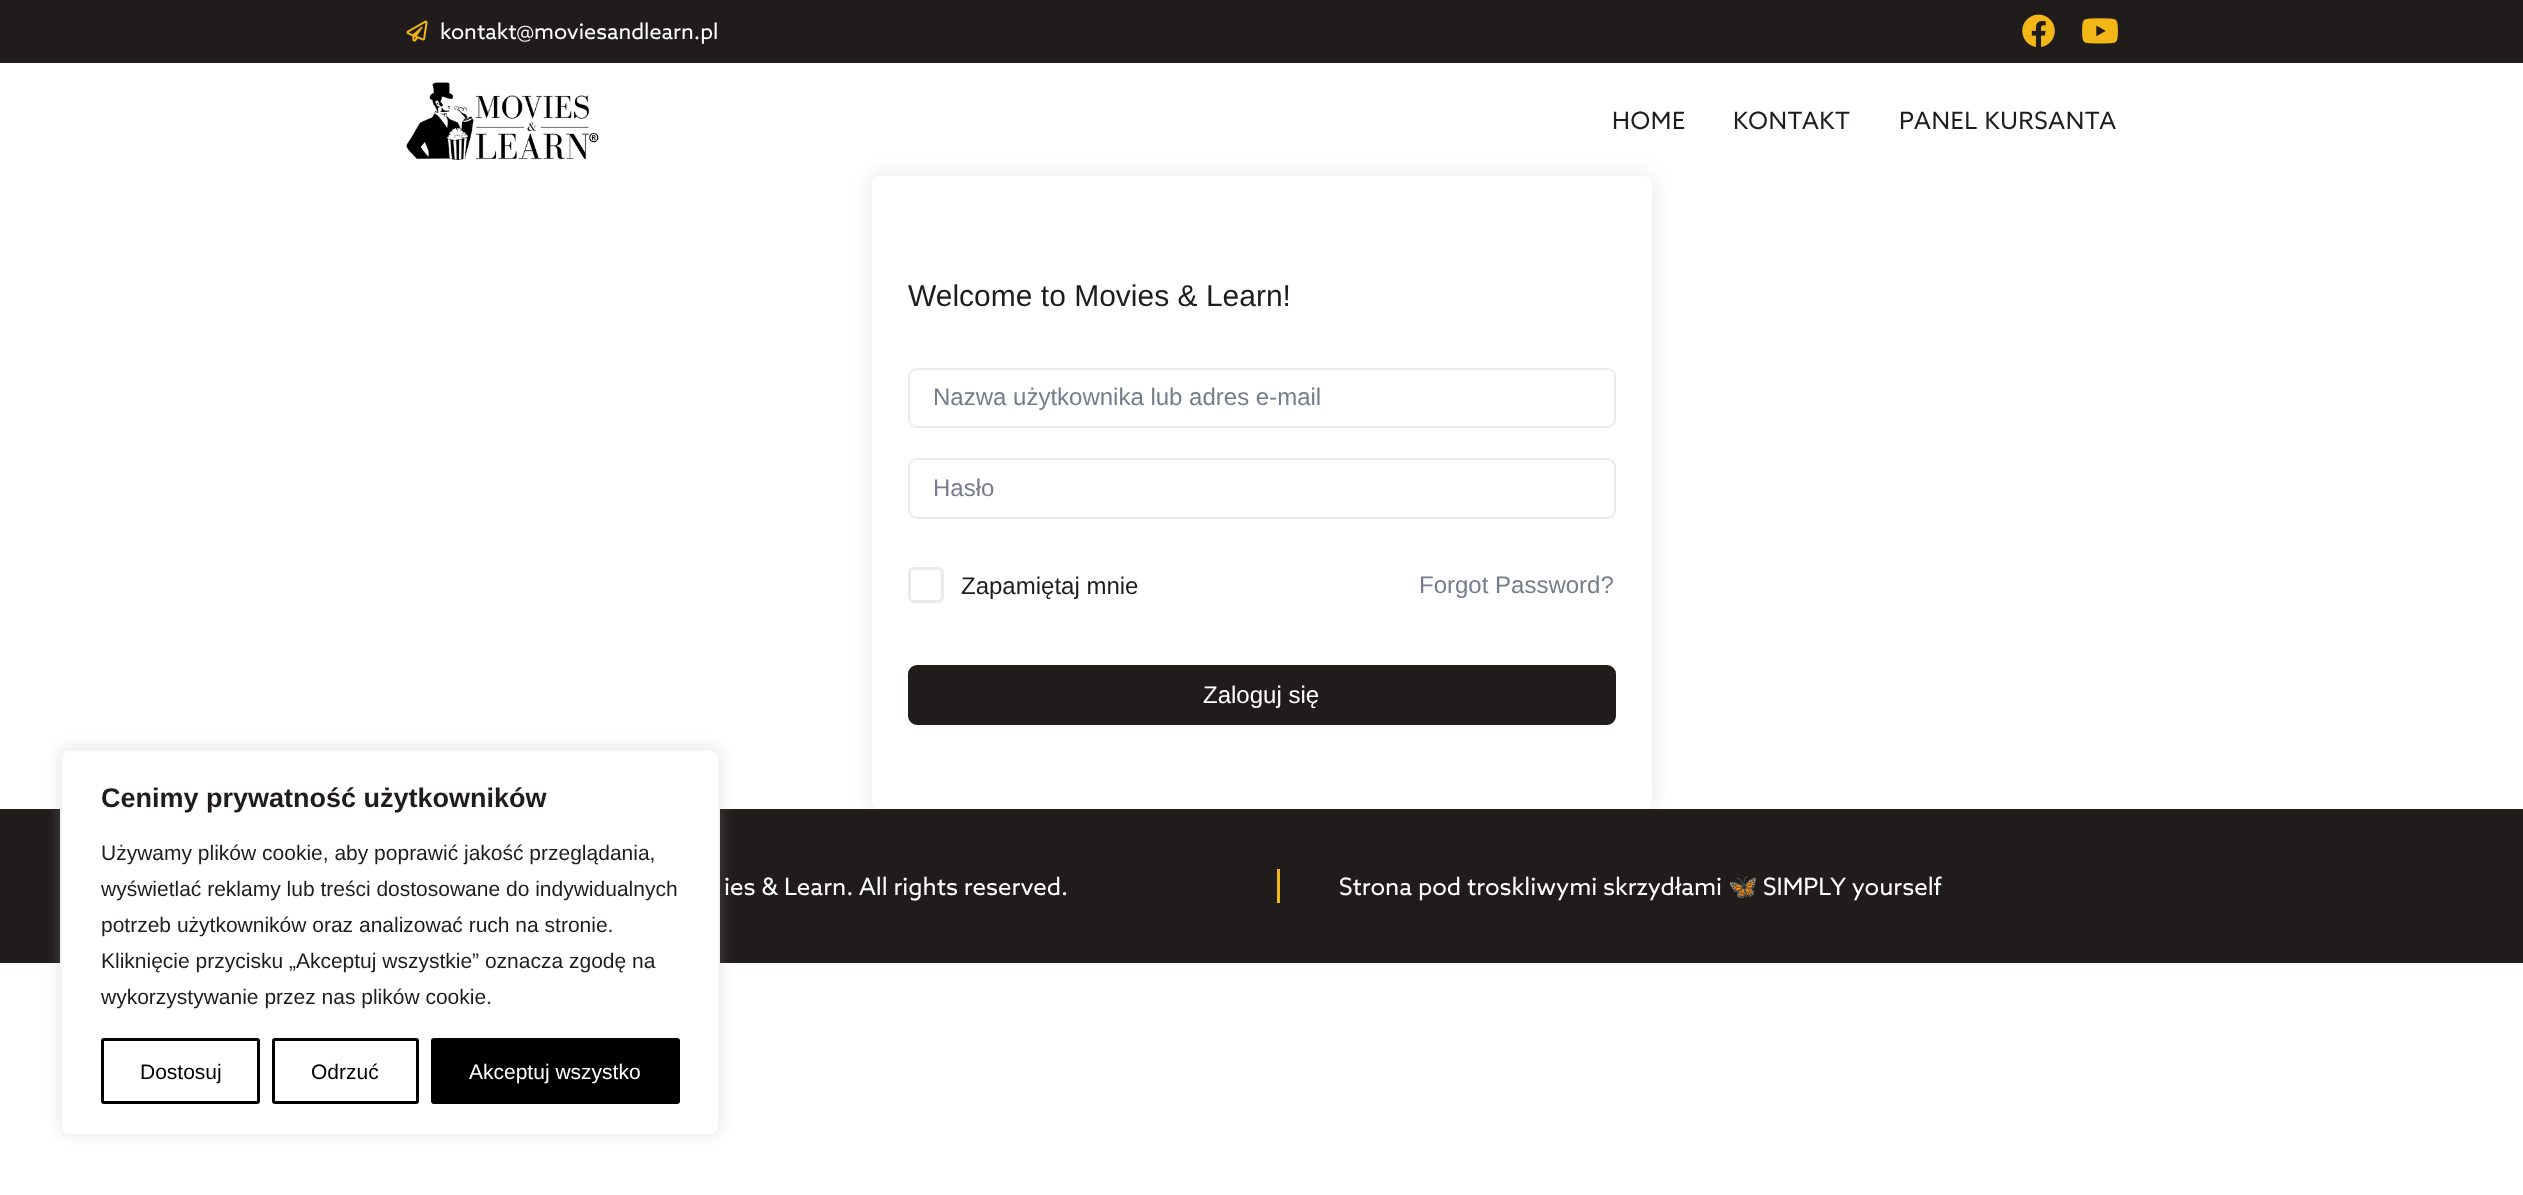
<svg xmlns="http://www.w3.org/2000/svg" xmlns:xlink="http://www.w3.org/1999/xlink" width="2523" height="1195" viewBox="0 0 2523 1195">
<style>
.cls-1{font:21.6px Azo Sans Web;fill:#ffffff}
.cls-2{font:24px Azo Sans Web;letter-spacing:0.6px;fill:#211c1c}
.cls-3{font:30px Liberation Sans;fill:#211c1c}
.cls-4{font:24px Liberation Sans;fill:#757c8e}
.cls-5{font:24px Liberation Sans;fill:#211c1c}
.cls-6{font:24px Liberation Sans;fill:#ffffff}
.cls-7{font:bold 27px Liberation Sans;fill:#211c1c}
.cls-8{font:21px Liberation Sans;fill:#211c1c}
.cls-9{font:21px Liberation Sans;fill:#000000}
.cls-10{font:21px Liberation Sans;fill:#ffffff}
.cls-11{font:24px Azo Sans Web;fill:#ffffff}
.cls-12{font:24px Noto Color Emoji;fill:#ffffff}
</style>
<defs>
<clipPath id="clip1"><path d="M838 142H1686V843H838ZM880 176H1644C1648.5 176 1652 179.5 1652 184V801C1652 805.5 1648.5 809 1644 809H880C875.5 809 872 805.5 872 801V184C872 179.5 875.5 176 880 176Z" clip-rule="evenodd"/></clipPath>
</defs>
<rect width="100%" height="100%" fill="#ffffff"/>
<rect fill="#211c1c" x="0" y="0" width="2523" height="63"/>
<image xlink:href="image0.png" x="406" y="20" width="22" height="22"/>
<image xlink:href="image1.png" x="2022" y="14" width="33" height="33"/>
<image xlink:href="image2.png" x="2082" y="18" width="36" height="26"/>
<image xlink:href="image3.png" x="406" y="82" width="193" height="78"/>
<g clip-path="url(#clip1)">
<rect fill="#000000" fill-opacity="0.1" filter="blur(11px)" x="872" y="176" width="780" height="633" rx="8"/>
</g>
<rect fill="none" stroke="#ebebea" stroke-width="2" x="909" y="369" width="706" height="58" rx="8"/>
<rect fill="none" stroke="#ebebea" stroke-width="2" x="909" y="459" width="706" height="59" rx="8"/>
<rect fill="none" stroke="#ebebea" stroke-width="3" x="909.5" y="568.5" width="33" height="33" rx="4.5"/>
<rect fill="#211c1c" stroke="#211c1c" stroke-width="2" x="909" y="666" width="706" height="58" rx="8"/>
<rect fill="#211c1c" x="0" y="809" width="2523" height="154"/>
<rect fill="#acabab" fill-opacity="0.3" filter="blur(7.5px)" x="60" y="747" width="660" height="387" rx="9"/>
<rect fill="#ffffff" stroke="#f4f4f4" stroke-width="2" x="61" y="750" width="658" height="385" rx="8"/>
<rect fill="none" stroke="#000000" stroke-width="3" x="102.5" y="1039.5" width="156" height="63" rx="1.5"/>
<rect fill="none" stroke="#000000" stroke-width="3" x="273.5" y="1039.5" width="144" height="63" rx="1.5"/>
<rect fill="#000000" stroke="#000000" stroke-width="3" x="432.5" y="1039.5" width="246" height="63" rx="1.5"/>
<rect fill="#f2b716" x="1277" y="869" width="3" height="34"/>
<text class="cls-1" x="440" y="39">kontakt@moviesandlearn.pl</text>
<text class="cls-2" x="1612" y="129">HOME</text>
<text class="cls-2" x="1733" y="129">KONTAKT</text>
<text class="cls-2" x="1899" y="129">PANEL KURSANTA</text>
<text class="cls-3" x="908" y="306">Welcome to Movies &amp; Learn!</text>
<text class="cls-4" x="933" y="405">Nazwa użytkownika lub adres e-mail</text>
<text class="cls-4" x="933" y="496">Hasło</text>
<text class="cls-5" x="961" y="594">Zapamiętaj mnie</text>
<text class="cls-4" x="1419" y="593">Forgot Password?</text>
<text class="cls-6" x="1203" y="703">Zaloguj się</text>
<text class="cls-7" x="101" y="807">Cenimy prywatność użytkowników</text>
<text class="cls-8"><tspan x="101" y="860">Używamy plików cookie, aby poprawić jakość przeglądania,</tspan><tspan x="101" y="896">wyświetlać reklamy lub treści dostosowane do indywidualnych</tspan><tspan x="101" y="932">potrzeb użytkowników oraz analizować ruch na stronie.</tspan><tspan x="101" y="968">Kliknięcie przycisku „Akceptuj wszystkie” oznacza zgodę na</tspan><tspan x="101" y="1004">wykorzystywanie przez nas plików cookie.</tspan></text>
<text class="cls-9" x="140" y="1079">Dostosuj</text>
<text class="cls-9" x="311" y="1079">Odrzuć</text>
<text class="cls-10" x="469" y="1079">Akceptuj wszystko</text>
<text class="cls-11" x="724" y="895">ies &amp; Learn. All rights reserved.</text>
<text class="cls-11" x="1339" y="895">Strona pod troskliwymi skrzydłami</text>
<text class="cls-12" x="1728" y="895">🦋</text>
<text class="cls-11" x="1763" y="895">SIMPLY yourself</text>
</svg>
